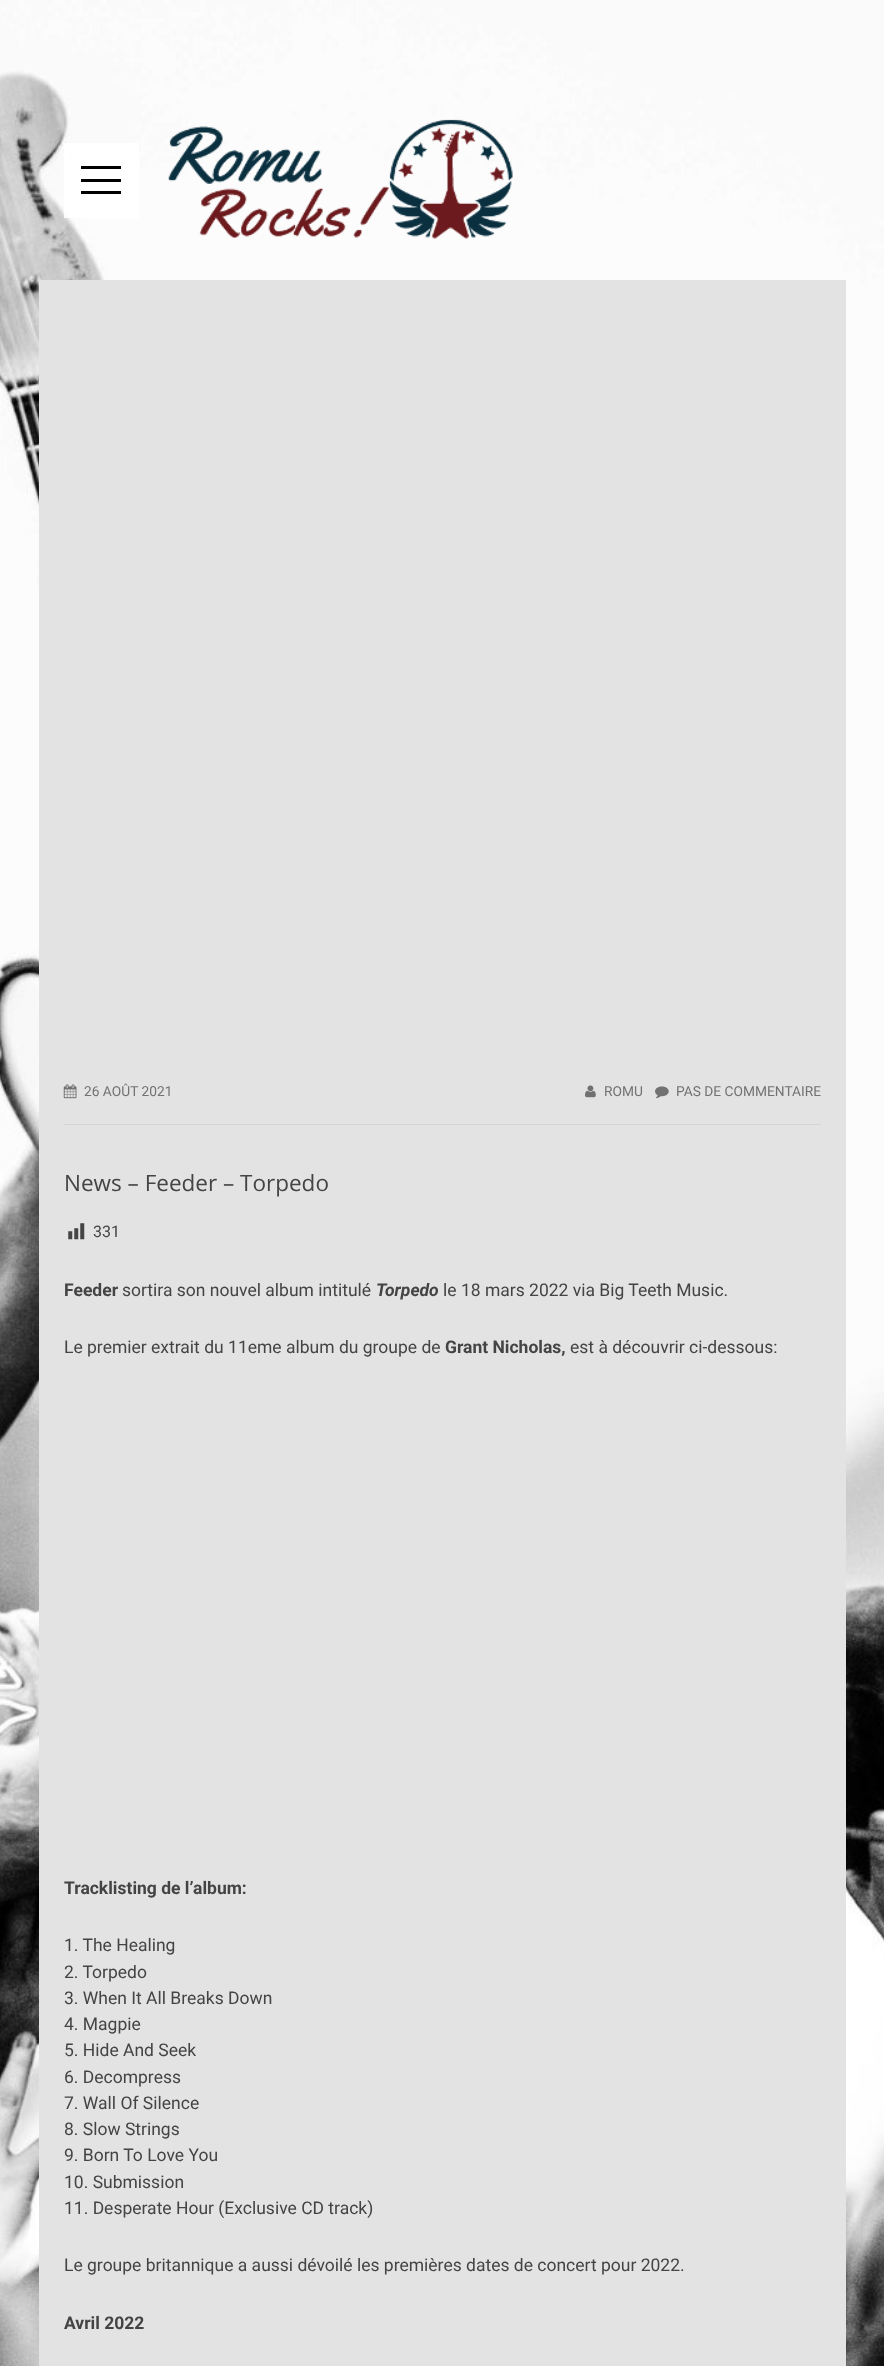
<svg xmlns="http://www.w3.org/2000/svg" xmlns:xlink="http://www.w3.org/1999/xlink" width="884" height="2366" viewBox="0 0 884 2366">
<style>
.cls-1{font:13.75px Roboto;fill:#727272}
.cls-2{font:22.5px Open Sans;fill:#444444}
.cls-3{font:16px Roboto;fill:#444444}
.cls-4{font:bold 17.5px Roboto;fill:#444444}
.cls-5{font:17.5px Roboto;fill:#444444}
.cls-6{font:italic bold 17.5px Roboto;fill:#444444}
</style>
<rect width="100%" height="100%" fill="#ffffff"/>
<image xlink:href="image0.png" x="0" y="0" width="884" height="2366"/>
<rect fill="#ffffff" fill-opacity="0.86" x="64" y="143" width="75" height="75"/>
<rect fill="#000000" x="81" y="166" width="40" height="3"/>
<rect fill="#000000" x="81" y="179" width="40" height="3"/>
<rect fill="#000000" x="81" y="191" width="40" height="3"/>
<image xlink:href="image1.png" x="168" y="119" width="345" height="120"/>
<rect fill="#e3e3e3" x="39" y="280" width="807" height="2086"/>
<rect fill="#d5d5d5" x="64" y="1124" width="757" height="1"/>
<image xlink:href="image2.png" x="63" y="1084" width="14" height="15"/>
<image xlink:href="image3.png" x="585" y="1085" width="11" height="13"/>
<image xlink:href="image4.png" x="655" y="1086" width="14" height="13"/>
<image xlink:href="image5.png" x="68" y="1223" width="17" height="17"/>
<text class="cls-1" x="84" y="1096">26 AOÛT 2021</text>
<text class="cls-1" x="604" y="1096">ROMU</text>
<text class="cls-1" x="676" y="1096">PAS DE COMMENTAIRE</text>
<text class="cls-2" x="64" y="1191">News – Feeder – Torpedo</text>
<text class="cls-3" x="93" y="1237">331</text>
<text class="cls-4" x="64" y="1296">Feeder</text>
<text class="cls-5" x="122" y="1296">sortira son nouvel album intitulé</text>
<text class="cls-6" x="376" y="1296">Torpedo</text>
<text class="cls-5" x="443" y="1296">le 18 mars 2022 via Big Teeth Music.</text>
<text class="cls-5" x="64" y="1353">Le premier extrait du 11eme album du groupe de</text>
<text class="cls-4" x="445" y="1353">Grant Nicholas,</text>
<text class="cls-5" x="570" y="1353">est à découvrir ci-dessous:</text>
<text class="cls-4" x="64" y="1894">Tracklisting de l’album:</text>
<text class="cls-5"><tspan x="64" y="1951">1. The Healing</tspan><tspan x="64" y="1978">2. Torpedo</tspan><tspan x="64" y="2004">3. When It All Breaks Down</tspan><tspan x="64" y="2030">4. Magpie</tspan><tspan x="64" y="2056">5. Hide And Seek</tspan><tspan x="64" y="2083">6. Decompress</tspan><tspan x="64" y="2109">7. Wall Of Silence</tspan><tspan x="64" y="2135">8. Slow Strings</tspan><tspan x="64" y="2161">9. Born To Love You</tspan><tspan x="64" y="2188">10. Submission</tspan><tspan x="64" y="2214">11. Desperate Hour (Exclusive CD track)</tspan></text>
<text class="cls-5" x="64" y="2271">Le groupe britannique a aussi dévoilé les premières dates de concert pour 2022.</text>
<text class="cls-4" x="64" y="2329">Avril 2022</text>
</svg>
